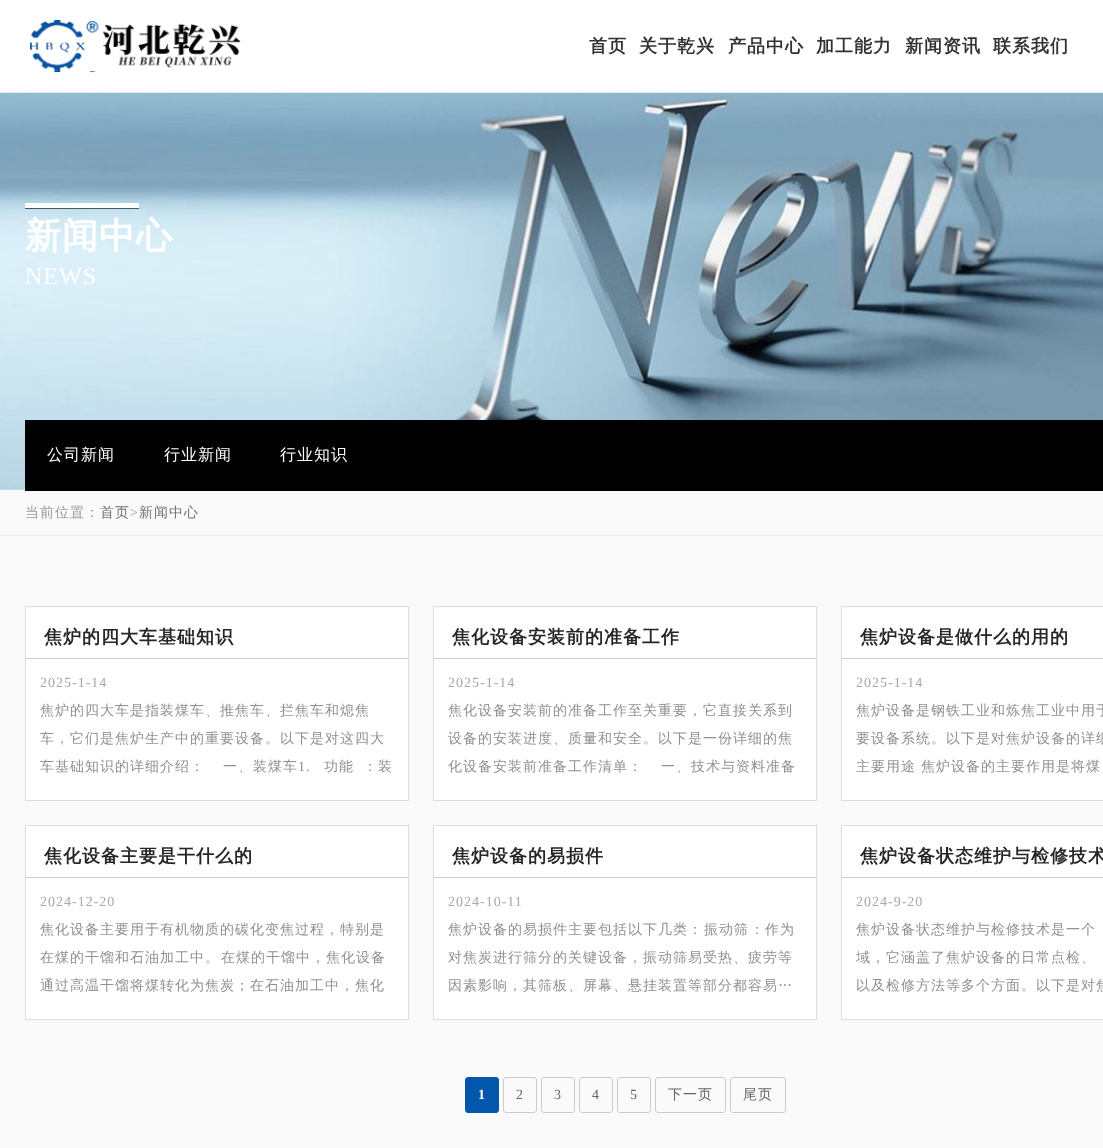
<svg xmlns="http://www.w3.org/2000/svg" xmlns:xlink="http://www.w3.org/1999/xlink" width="1103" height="1148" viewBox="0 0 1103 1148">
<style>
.cls-1{font:bold 18px WenQuanYi Zen Hei;letter-spacing:1px;fill:#333333}
.cls-2{font:bold 36px WenQuanYi Zen Hei;letter-spacing:1px;fill:#ffffff}
.cls-3{font:24px Liberation Serif;letter-spacing:1px;fill:#ffffff}
.cls-4{font:500 16px WenQuanYi Zen Hei;letter-spacing:1px;fill:#ffffff}
.cls-5{font:500 14px WenQuanYi Zen Hei;letter-spacing:1px;fill:#989898}
.cls-6{font:500 14px WenQuanYi Zen Hei;letter-spacing:1px;fill:#737272}
.cls-7{font:14px Liberation Serif;letter-spacing:1px;fill:#989898}
.cls-8{font:bold 18px WenQuanYi Zen Hei;letter-spacing:1px;fill:#262626}
.cls-9{font:14px Liberation Serif;letter-spacing:1px;fill:#a8a8a8}
.cls-10{font:500 14px WenQuanYi Zen Hei;letter-spacing:1px;fill:#909090}
.cls-11{font:14px Liberation Serif;letter-spacing:1px;fill:#909090}
.cls-12{font:bold 14px Liberation Serif;letter-spacing:1px;fill:#ffffff}
.cls-13{font:14px Liberation Serif;letter-spacing:1px;fill:#666666}
.cls-14{font:500 14px WenQuanYi Zen Hei;letter-spacing:1px;fill:#666666}
</style>
<rect width="100%" height="100%" fill="#fafafa"/>
<rect fill="#ffffff" x="0" y="0" width="1103" height="92"/>
<rect fill="#dde9f3" x="0" y="92" width="1103" height="1"/>
<image xlink:href="image0.png" x="30" y="20" width="211" height="53"/>
<image xlink:href="image1.png" x="0" y="93" width="1103" height="397"/>
<rect fill="#000000" fill-opacity="0.6" filter="blur(0.5px)" x="25" y="204" width="114" height="5"/>
<rect fill="#ffffff" x="25" y="203" width="114" height="5"/>
<rect fill="#000000" x="25" y="420" width="1078" height="71"/>
<rect fill="#eeeeee" x="0" y="535" width="1103" height="1"/>
<rect fill="none" stroke="#dddddd" x="25.5" y="606.5" width="383" height="194"/>
<rect fill="#ffffff" x="26" y="607" width="382" height="193"/>
<rect fill="#cccccc" x="26" y="658" width="382" height="1"/>
<rect fill="none" stroke="#dddddd" x="433.5" y="606.5" width="383" height="194"/>
<rect fill="#ffffff" x="434" y="607" width="382" height="193"/>
<rect fill="#cccccc" x="434" y="658" width="382" height="1"/>
<rect fill="none" stroke="#dddddd" x="841.5" y="606.5" width="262" height="194"/>
<rect fill="#ffffff" x="842" y="607" width="261" height="193"/>
<rect fill="#cccccc" x="842" y="658" width="261" height="1"/>
<rect fill="none" stroke="#dddddd" x="25.5" y="825.5" width="383" height="194"/>
<rect fill="#ffffff" x="26" y="826" width="382" height="193"/>
<rect fill="#cccccc" x="26" y="877" width="382" height="1"/>
<rect fill="none" stroke="#dddddd" x="433.5" y="825.5" width="383" height="194"/>
<rect fill="#ffffff" x="434" y="826" width="382" height="193"/>
<rect fill="#cccccc" x="434" y="877" width="382" height="1"/>
<rect fill="none" stroke="#dddddd" x="841.5" y="825.5" width="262" height="194"/>
<rect fill="#ffffff" x="842" y="826" width="261" height="193"/>
<rect fill="#cccccc" x="842" y="877" width="261" height="1"/>
<rect fill="#0256ac" stroke="#0256ac" x="465.5" y="1077.5" width="33" height="35" rx="2.5"/>
<rect fill="none" stroke="#cccccc" x="503.5" y="1077.5" width="33" height="35" rx="2.5"/>
<rect fill="none" stroke="#cccccc" x="541.5" y="1077.5" width="33" height="35" rx="2.5"/>
<rect fill="none" stroke="#cccccc" x="579.5" y="1077.5" width="33" height="35" rx="2.5"/>
<rect fill="none" stroke="#cccccc" x="617.5" y="1077.5" width="33" height="35" rx="2.5"/>
<rect fill="none" stroke="#cccccc" x="655.5" y="1077.5" width="70" height="35" rx="2.5"/>
<rect fill="none" stroke="#cccccc" x="730.5" y="1077.5" width="55" height="35" rx="2.5"/>
<text class="cls-1" x="589" y="52">首页</text>
<text class="cls-1" x="639" y="52">关于乾兴</text>
<text class="cls-1" x="728" y="52">产品中心</text>
<text class="cls-1" x="816" y="52">加工能力</text>
<text class="cls-1" x="905" y="52">新闻资讯</text>
<text class="cls-1" x="993" y="52">联系我们</text>
<text class="cls-2" x="25" y="248">新闻中心</text>
<text class="cls-3" x="25" y="284">NEWS</text>
<text class="cls-4" x="47" y="460">公司新闻</text>
<text class="cls-4" x="164" y="460">行业新闻</text>
<text class="cls-4" x="280" y="460">行业知识</text>
<text class="cls-5" x="25" y="517">当前位置：</text>
<text class="cls-6" x="100" y="517">首页</text>
<text class="cls-7" x="130" y="517">&gt;</text>
<text class="cls-6" x="139" y="517">新闻中心</text>
<text class="cls-8" x="44" y="643">焦炉的四大车基础知识</text>
<text class="cls-9" x="40" y="687">2025-1-14</text>
<text class="cls-10" x="40" y="715">焦炉的四大车是指装煤车、推焦车、拦焦车和熄焦</text>
<text class="cls-10" x="40" y="743">车，它们是焦炉生产中的重要设备。以下是对这四大</text>
<text class="cls-10" x="40" y="771">车基础知识的详细介绍：</text>
<text class="cls-10" x="223" y="771">一、装煤车</text>
<text class="cls-11" x="298" y="771">1.</text>
<text class="cls-10" x="324" y="771">功能</text>
<text class="cls-10" x="363" y="771">：装</text>
<text class="cls-8" x="452" y="643">焦化设备安装前的准备工作</text>
<text class="cls-9" x="448" y="687">2025-1-14</text>
<text class="cls-10" x="448" y="715">焦化设备安装前的准备工作至关重要，它直接关系到</text>
<text class="cls-10" x="448" y="743">设备的安装进度、质量和安全。以下是一份详细的焦</text>
<text class="cls-10" x="448" y="771">化设备安装前准备工作清单：</text>
<text class="cls-10" x="661" y="771">一、技术与资料准备</text>
<text class="cls-8" x="860" y="643">焦炉设备是做什么的用的</text>
<text class="cls-9" x="856" y="687">2025-1-14</text>
<text class="cls-10" x="856" y="715">焦炉设备是钢铁工业和炼焦工业中用于</text>
<text class="cls-10" x="856" y="743">要设备系统。以下是对焦炉设备的详细</text>
<text class="cls-10" x="856" y="771">主要用途</text>
<text class="cls-10" x="921" y="771">焦炉设备的主要作用是将煤</text>
<text class="cls-8" x="44" y="862">焦化设备主要是干什么的</text>
<text class="cls-9" x="40" y="906">2024-12-20</text>
<text class="cls-10" x="40" y="934">焦化设备主要用于有机物质的碳化变焦过程，特别是</text>
<text class="cls-10" x="40" y="962">在煤的干馏和石油加工中。</text>
<text class="cls-10" x="221" y="962">在煤的干馏中，焦化设备</text>
<text class="cls-10" x="40" y="990">通过高温干馏将煤转化为焦炭；在石油加工中，焦化</text>
<text class="cls-8" x="452" y="862">焦炉设备的易损件</text>
<text class="cls-9" x="448" y="906">2024-10-11</text>
<text class="cls-10" x="448" y="934">焦炉设备的易损件主要包括以下几类：</text>
<text class="cls-10" x="704" y="934">振动筛</text>
<text class="cls-10" x="750" y="934">：作为</text>
<text class="cls-10" x="448" y="962">对焦炭进行筛分的关键设备，振动筛易受热、疲劳等</text>
<text class="cls-10" x="448" y="990">因素影响，其筛板、屏幕、悬挂装置等部分都容易…</text>
<text class="cls-8" x="860" y="862">焦炉设备状态维护与检修技术</text>
<text class="cls-9" x="856" y="906">2024-9-20</text>
<text class="cls-10" x="856" y="934">焦炉设备状态维护与检修技术是一个</text>
<text class="cls-10" x="856" y="962">域，它涵盖了焦炉设备的日常点检、</text>
<text class="cls-10" x="856" y="990">以及检修方法等多个方面。以下是对焦</text>
<text class="cls-12" x="478" y="1099">1</text>
<text class="cls-13" x="516" y="1099">2</text>
<text class="cls-13" x="554" y="1099">3</text>
<text class="cls-13" x="592" y="1099">4</text>
<text class="cls-13" x="630" y="1099">5</text>
<text class="cls-14" x="668" y="1099">下一页</text>
<text class="cls-14" x="743" y="1099">尾页</text>
</svg>
